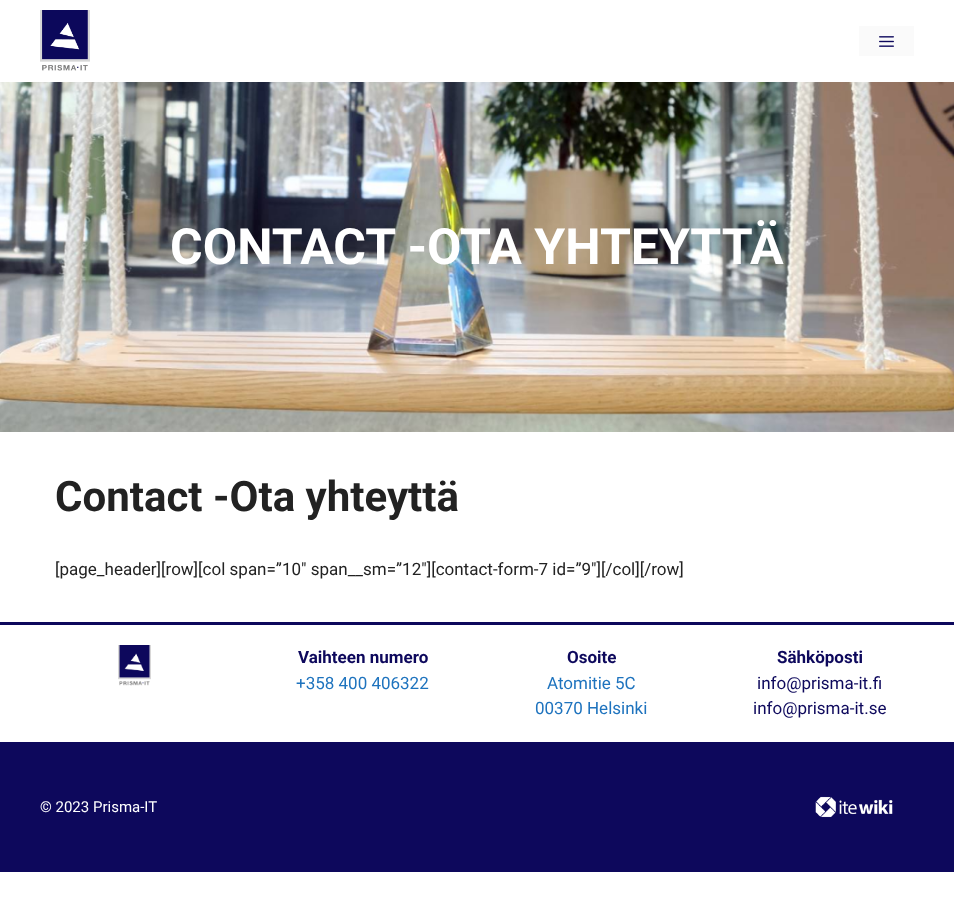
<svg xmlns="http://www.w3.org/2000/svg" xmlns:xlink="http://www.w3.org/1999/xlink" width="954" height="920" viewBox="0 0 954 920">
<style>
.cls-1{font:bold 50px Roboto;fill:#ffffff}
.cls-2{font:bold 42px Roboto;fill:#222222}
.cls-3{font:17px Roboto;fill:#222222}
.cls-4{font:bold 17px Roboto;fill:#0d085c}
.cls-5{font:17px Roboto;fill:#1e73be}
.cls-6{font:17px Roboto;fill:#0d085c}
.cls-7{font:15px Roboto;fill:#ffffff}
</style>
<rect width="100%" height="100%" fill="#ffffff"/>
<image xlink:href="image0.png" x="40" y="10" width="50" height="61"/>
<rect fill="#fafafa" x="859" y="26" width="55" height="30"/>
<image xlink:href="image1.png" x="879" y="36" width="15" height="11"/>
<image xlink:href="image2.png" x="0" y="82" width="954" height="350"/>
<rect fill="#0d085c" x="0" y="622" width="954" height="3"/>
<image xlink:href="image3.png" x="118" y="645" width="33" height="41"/>
<rect fill="#0d085c" x="0" y="742" width="954" height="130"/>
<image xlink:href="image4.png" x="815" y="796" width="78" height="22"/>
<text class="cls-1" x="170" y="264">CONTACT -OTA YHTEYTTÄ</text>
<text class="cls-2" x="55" y="511">Contact -Ota yhteyttä</text>
<text class="cls-3" x="55" y="575">[page_header][row][col span=”10″ span__sm=”12″][contact-form-7 id=”9″][/col][/row]</text>
<text class="cls-4" x="298" y="663">Vaihteen numero</text>
<text class="cls-5" x="296" y="689">+358 400 406322</text>
<text class="cls-4" x="567" y="663">Osoite</text>
<text class="cls-5" x="547" y="689">Atomitie 5C</text>
<text class="cls-5" x="535" y="714">00370 Helsinki</text>
<text class="cls-4" x="777" y="663">Sähköposti</text>
<text class="cls-6" x="757" y="689">info@prisma-it.fi</text>
<text class="cls-6" x="753" y="714">info@prisma-it.se</text>
<text class="cls-7" x="40" y="812">© 2023 Prisma-IT</text>
</svg>
